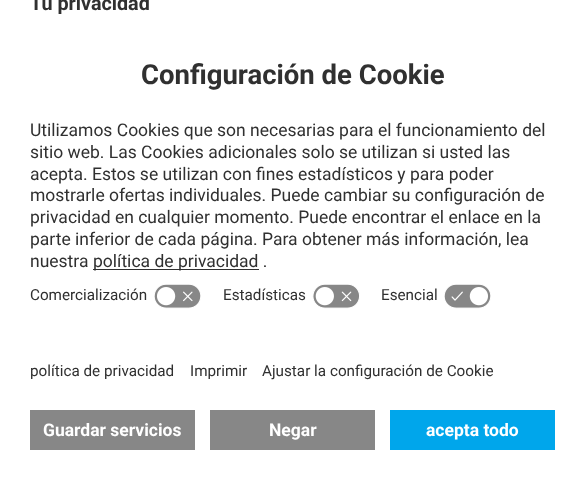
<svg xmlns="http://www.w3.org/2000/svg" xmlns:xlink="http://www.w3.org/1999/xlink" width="585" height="479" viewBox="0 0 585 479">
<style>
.cls-1{font:bold 19.75px Roboto;fill:#303030}
.cls-2{font:bold 27.5px Roboto;fill:#303030}
.cls-3{font:17.5px Roboto;fill:#303030}
.cls-4{font:15.25px Roboto;fill:#303030}
.cls-5{font:bold 17.5px Roboto;fill:#ffffff}
</style>
<rect width="100%" height="100%" fill="#ffffff"/>
<rect fill="#303030" x="93" y="269" width="166" height="1"/>
<image xlink:href="image0.png" x="154" y="284" width="47" height="25"/>
<image xlink:href="image1.png" x="312" y="284" width="48" height="25"/>
<image xlink:href="image2.png" x="444" y="284" width="47" height="25"/>
<rect fill="#878787" x="30" y="410" width="165" height="40"/>
<rect fill="#878787" x="210" y="410" width="165" height="40"/>
<rect fill="#00a6eb" x="390" y="410" width="165" height="40"/>
<text class="cls-1" x="30" y="10">Tu privacidad</text>
<text class="cls-2" x="141" y="84">Configuración de Cookie</text>
<text class="cls-3"><tspan x="30" y="136">Utilizamos Cookies que son necesarias para el funcionamiento del</tspan><tspan x="30" y="158">sitio web. Las Cookies adicionales solo se utilizan si usted las</tspan><tspan x="30" y="180">acepta. Estos se utilizan con fines estadísticos y para poder</tspan><tspan x="30" y="201">mostrarle ofertas individuales. Puede cambiar su configuración de</tspan><tspan x="30" y="223">privacidad en cualquier momento. Puede encontrar el enlace en la</tspan><tspan x="30" y="245">parte inferior de cada página. Para obtener más información, lea</tspan><tspan x="30" y="267">nuestra</tspan></text>
<text class="cls-3" x="93" y="267">política de privacidad .</text>
<text class="cls-4" x="30" y="300">Comercialización</text>
<text class="cls-4" x="223" y="300">Estadísticas</text>
<text class="cls-4" x="381" y="300">Esencial</text>
<text class="cls-4" x="30" y="376">política de privacidad</text>
<text class="cls-4" x="190" y="376">Imprimir</text>
<text class="cls-4" x="262" y="376">Ajustar la configuración de Cookie</text>
<text class="cls-5" x="43" y="436">Guardar servicios</text>
<text class="cls-5" x="269" y="436">Negar</text>
<text class="cls-5" x="426" y="436">acepta todo</text>
</svg>
